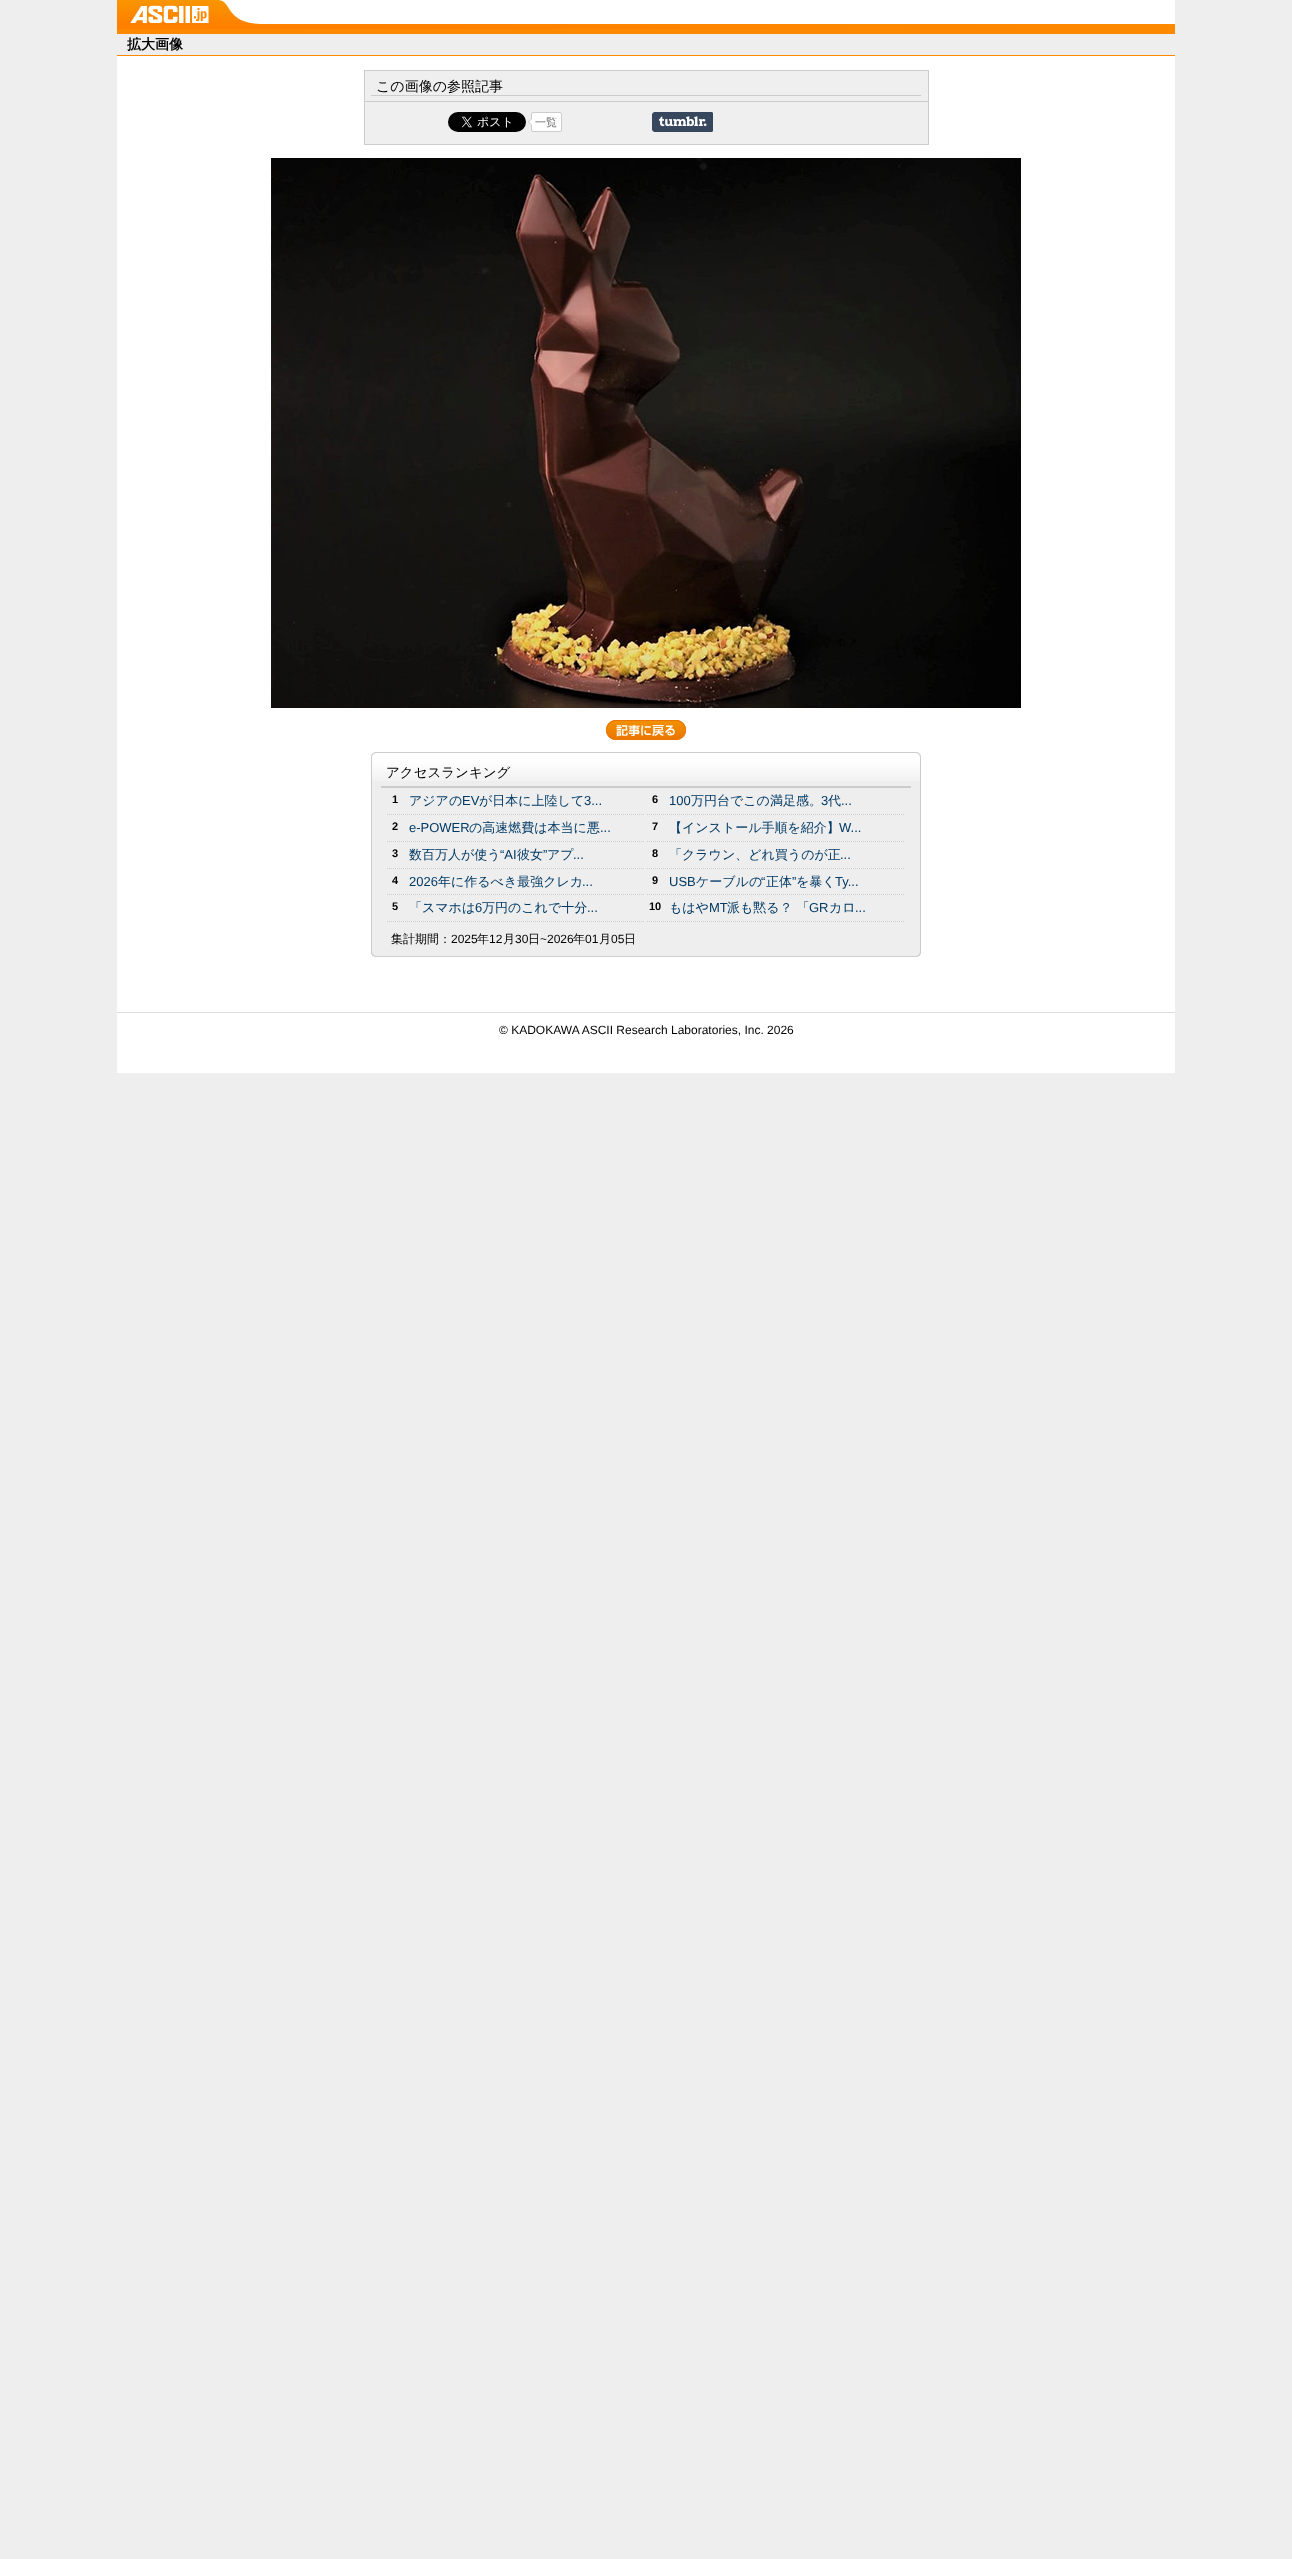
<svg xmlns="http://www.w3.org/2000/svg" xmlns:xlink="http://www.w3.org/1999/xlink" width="1292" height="2559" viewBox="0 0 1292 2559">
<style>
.cls-1{font:bold 14px WenQuanYi Zen Hei;fill:#000000}
.cls-2{font:500 14px WenQuanYi Zen Hei;fill:#000000}
.cls-3{font:500 11px WenQuanYi Zen Hei;fill:#666666}
.cls-4{font:500 13.5px WenQuanYi Zen Hei;fill:#000000}
.cls-5{font:bold 11px Liberation Sans;fill:#000000}
.cls-6{font:500 13px WenQuanYi Zen Hei;fill:#003964}
.cls-7{font:13px Liberation Sans;fill:#003964}
.cls-8{font:500 12px WenQuanYi Zen Hei;fill:#000000}
.cls-9{font:12px Liberation Sans;fill:#000000}
</style>
<rect width="100%" height="100%" fill="#eeeeee"/>
<rect fill="#ffffff" x="117" y="56" width="1058" height="1017"/>
<image xlink:href="image0.png" x="117" y="0" width="1058" height="29"/>
<image xlink:href="image1.png" x="130" y="5" width="79" height="18"/>
<rect fill="#fc8900" x="117" y="29" width="1058" height="5"/>
<rect fill="#fc8900" x="117" y="55" width="1058" height="1"/>
<rect fill="#efefef" stroke="#cccccc" x="364.5" y="70.5" width="564" height="74"/>
<rect fill="#cccccc" x="371" y="95" width="550" height="1"/>
<rect fill="#cccccc" x="365" y="101" width="563" height="1"/>
<image xlink:href="image2.png" x="448" y="112" width="78" height="20"/>
<rect fill="#ffffff" stroke="#cccccc" x="531.5" y="112.5" width="30" height="19" rx="1.5"/>
<path fill="#cccccc" d="M532 118V126L528 122Z"/>
<path fill="#ffffff" d="M532 119V125L529 122Z"/>
<image xlink:href="image3.png" x="652" y="112" width="61" height="20"/>
<image xlink:href="image4.png" x="271" y="158" width="750" height="550"/>
<image xlink:href="image5.png" x="606" y="720" width="80" height="20"/>
<image xlink:href="image6.png" x="371" y="781" width="550" height="176"/>
<image xlink:href="image7.png" x="371" y="752" width="550" height="29"/>
<rect fill="#cccccc" x="381" y="786" width="530" height="2"/>
<path fill="none" stroke="#cccccc" stroke-dasharray="1 1" d="M387 814.5H645"/>
<path fill="none" stroke="#cccccc" stroke-dasharray="1 1" d="M387 841.5H645"/>
<path fill="none" stroke="#cccccc" stroke-dasharray="1 1" d="M387 868.5H645"/>
<path fill="none" stroke="#cccccc" stroke-dasharray="1 1" d="M387 894.5H645"/>
<path fill="none" stroke="#cccccc" stroke-dasharray="1 1" d="M387 921.5H645"/>
<path fill="none" stroke="#cccccc" stroke-dasharray="1 1" d="M647 814.5H905"/>
<path fill="none" stroke="#cccccc" stroke-dasharray="1 1" d="M647 841.5H905"/>
<path fill="none" stroke="#cccccc" stroke-dasharray="1 1" d="M647 868.5H905"/>
<path fill="none" stroke="#cccccc" stroke-dasharray="1 1" d="M647 894.5H905"/>
<path fill="none" stroke="#cccccc" stroke-dasharray="1 1" d="M647 921.5H905"/>
<rect fill="#dddddd" x="117" y="1012" width="1058" height="1"/>
<text class="cls-1" x="127" y="49">拡大画像</text>
<text class="cls-2" x="376" y="91">この画像の参照記事</text>
<text class="cls-3" x="535" y="126">一覧</text>
<text class="cls-4" x="386" y="777">アクセスランキング</text>
<text class="cls-5" x="392" y="803">1</text>
<text class="cls-6" x="409" y="805">アジアの</text>
<text class="cls-7" x="462" y="805">EV</text>
<text class="cls-6" x="479" y="805">が日本に上陸して</text>
<text class="cls-7" x="584" y="805">3...</text>
<text class="cls-5" x="392" y="830">2</text>
<text class="cls-7" x="409" y="832">e-POWER</text>
<text class="cls-6" x="469" y="832">の高速燃費は本当に悪</text>
<text class="cls-7" x="600" y="832">...</text>
<text class="cls-5" x="392" y="857">3</text>
<text class="cls-6" x="409" y="859">数百万人が使う</text>
<text class="cls-7" x="500" y="859">“AI</text>
<text class="cls-6" x="517" y="859">彼女</text>
<text class="cls-7" x="543" y="859">”</text>
<text class="cls-6" x="547" y="859">アプ</text>
<text class="cls-7" x="573" y="859">...</text>
<text class="cls-5" x="392" y="884">4</text>
<text class="cls-7" x="409" y="886">2026</text>
<text class="cls-6" x="438" y="886">年に作るべき最強クレカ</text>
<text class="cls-7" x="582" y="886">...</text>
<text class="cls-5" x="392" y="910">5</text>
<text class="cls-6" x="409" y="912">「スマホは</text>
<text class="cls-7" x="475" y="912">6</text>
<text class="cls-6" x="482" y="912">万円のこれで十分</text>
<text class="cls-7" x="587" y="912">...</text>
<text class="cls-5" x="652" y="803">6</text>
<text class="cls-7" x="669" y="805">100</text>
<text class="cls-6" x="691" y="805">万円台でこの満足感。</text>
<text class="cls-7" x="821" y="805">3</text>
<text class="cls-6" x="828" y="805">代</text>
<text class="cls-7" x="841" y="805">...</text>
<text class="cls-5" x="652" y="830">7</text>
<text class="cls-6" x="669" y="832">【インストール手順を紹介】</text>
<text class="cls-7" x="839" y="832">W...</text>
<text class="cls-5" x="652" y="857">8</text>
<text class="cls-6" x="669" y="859">「クラウン、どれ買うのが正</text>
<text class="cls-7" x="840" y="859">...</text>
<text class="cls-5" x="652" y="884">9</text>
<text class="cls-7" x="669" y="886">USB</text>
<text class="cls-6" x="696" y="886">ケーブルの</text>
<text class="cls-7" x="761" y="886">“</text>
<text class="cls-6" x="766" y="886">正体</text>
<text class="cls-7" x="792" y="886">”</text>
<text class="cls-6" x="796" y="886">を暴く</text>
<text class="cls-7" x="835" y="886">Ty...</text>
<text class="cls-5" x="649" y="910">10</text>
<text class="cls-6" x="669" y="912">もはや</text>
<text class="cls-7" x="709" y="912">MT</text>
<text class="cls-6" x="727" y="912">派も黙る？ 「</text>
<text class="cls-7" x="809" y="912">GR</text>
<text class="cls-6" x="829" y="912">カロ</text>
<text class="cls-7" x="855" y="912">...</text>
<text class="cls-8" x="391" y="943">集計期間：</text>
<text class="cls-9" x="451" y="943">2025</text>
<text class="cls-8" x="477" y="943">年</text>
<text class="cls-9" x="489" y="943">12</text>
<text class="cls-8" x="503" y="943">月</text>
<text class="cls-9" x="515" y="943">30</text>
<text class="cls-8" x="528" y="943">日</text>
<text class="cls-9" x="540" y="943">~2026</text>
<text class="cls-8" x="573" y="943">年</text>
<text class="cls-9" x="585" y="943">01</text>
<text class="cls-8" x="599" y="943">月</text>
<text class="cls-9" x="611" y="943">05</text>
<text class="cls-8" x="624" y="943">日</text>
<text class="cls-9" x="499" y="1034">© KADOKAWA ASCII Research Laboratories, Inc. 2026</text>
</svg>
